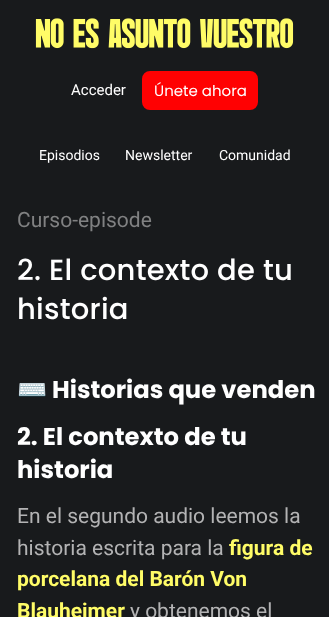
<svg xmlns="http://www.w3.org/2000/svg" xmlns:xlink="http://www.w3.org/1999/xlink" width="329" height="617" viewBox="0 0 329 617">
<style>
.cls-1{font:15px Roboto;fill:#ffffff}
.cls-2{font:15px Poppins;fill:#ffffff}
.cls-3{font:14px Roboto;fill:#ffffff}
.cls-4{font:21px Roboto;fill:#808182}
.cls-5{font:500 29px Poppins;letter-spacing:0.25px;fill:#ffffff}
.cls-6{font:bold 24.25px Noto Color Emoji;fill:#ffffff}
.cls-7{font:bold 24.25px Poppins;fill:#ffffff}
.cls-8{font:21px Roboto;fill:#b3b3b4}
.cls-9{font:bold 21px Roboto;fill:#fffc67}
</style>
<rect width="100%" height="100%" fill="#181a1c"/>
<image xlink:href="image0.png" x="35" y="18" width="259" height="31"/>
<rect fill="#ff0102" stroke="#ff0102" stroke-width="2" x="143" y="72" width="114" height="37" rx="7"/>
<text class="cls-1" x="71" y="95">Acceder</text>
<text class="cls-2" x="154" y="96">Únete ahora</text>
<text class="cls-3" x="39" y="160">Episodios</text>
<text class="cls-3" x="125" y="160">Newsletter</text>
<text class="cls-3" x="219" y="160">Comunidad</text>
<text class="cls-4" x="17" y="227">Curso-episode</text>
<text class="cls-5"><tspan x="17" y="280">2. El contexto de tu</tspan><tspan x="17" y="319">historia</tspan></text>
<text class="cls-6" x="17" y="398">⌨️</text>
<text class="cls-7" x="52" y="398">Historias que venden</text>
<text class="cls-7"><tspan x="17" y="445">2. El contexto de tu</tspan><tspan x="17" y="478">historia</tspan></text>
<text class="cls-8"><tspan x="17" y="523">En el segundo audio leemos la</tspan><tspan x="17" y="555">historia escrita para la</tspan></text>
<text class="cls-9" x="229" y="555">figura de</text>
<text class="cls-9"><tspan x="17" y="586">porcelana del Barón Von</tspan><tspan x="17" y="618">Blauheimer</tspan></text>
<text class="cls-8" x="130" y="618">y obtenemos el</text>
</svg>
